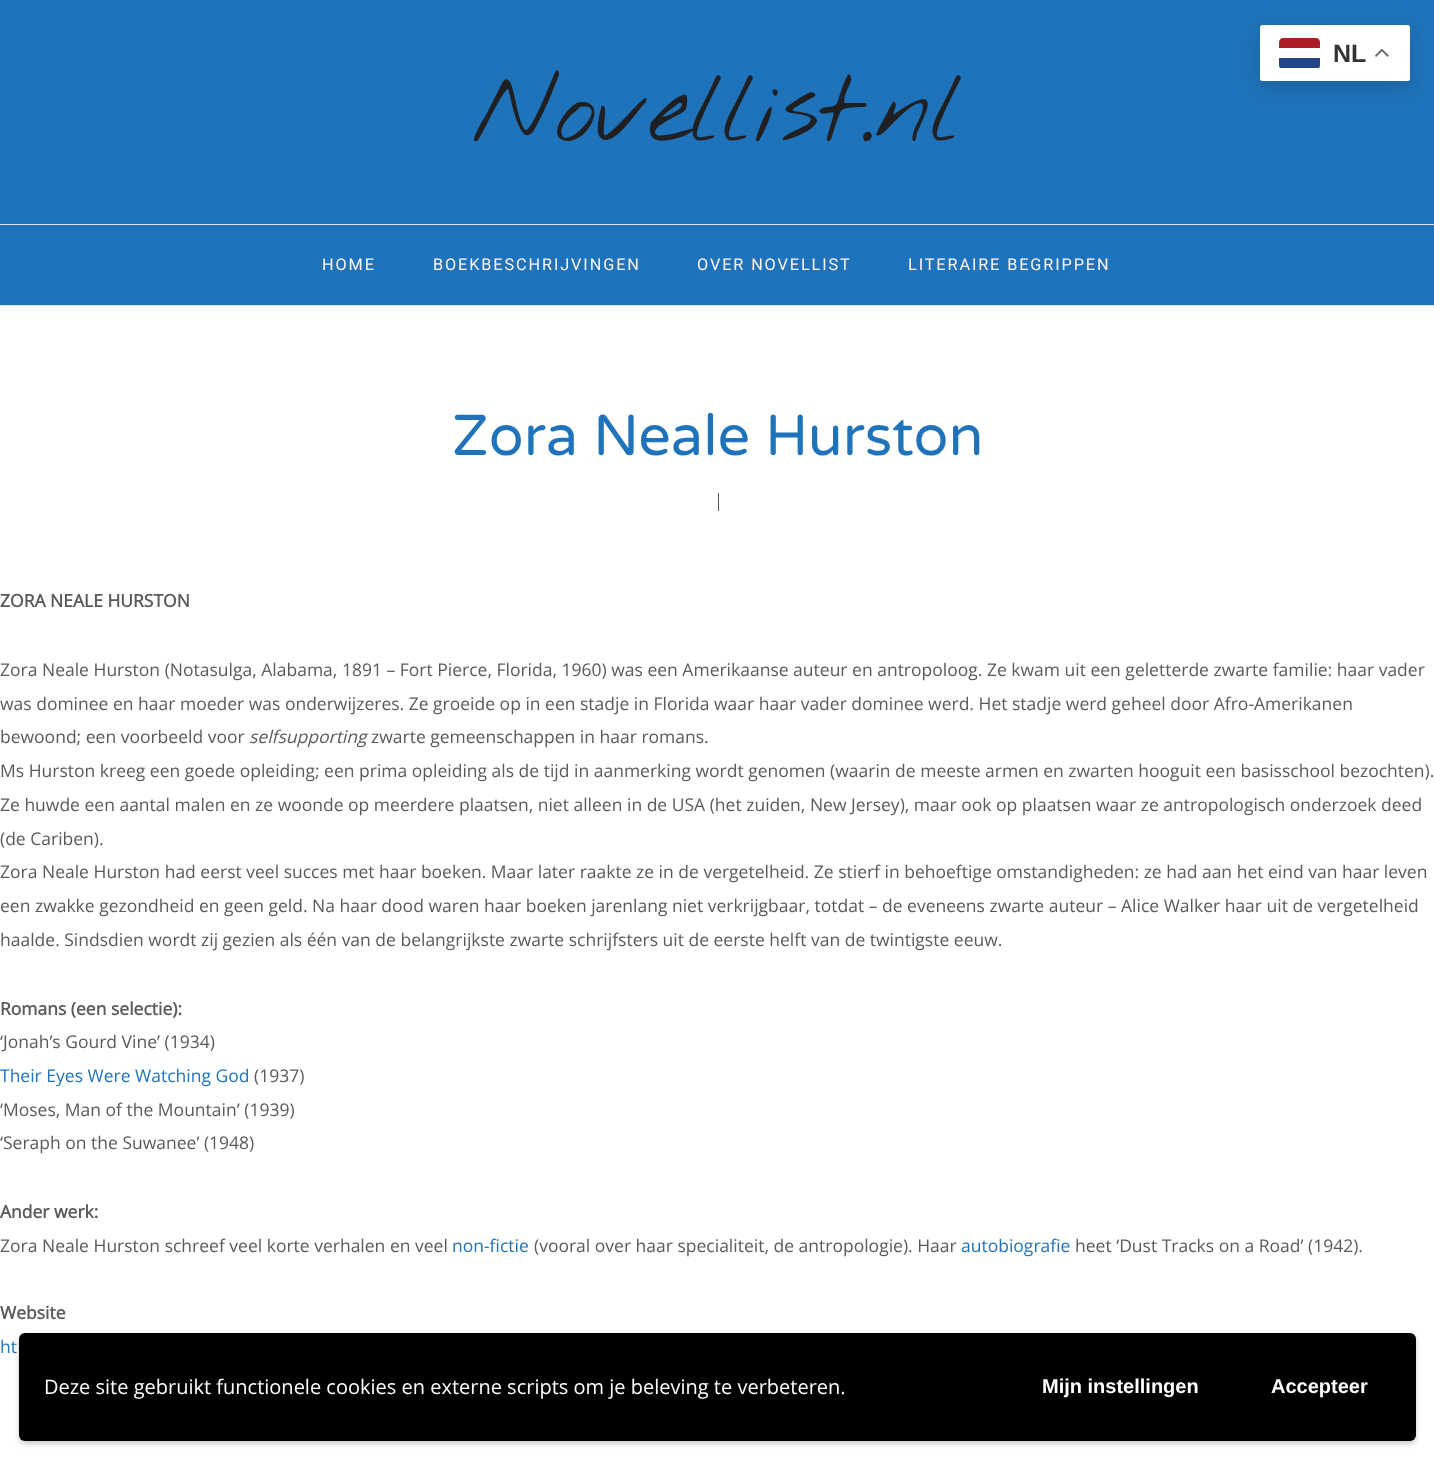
<svg xmlns="http://www.w3.org/2000/svg" xmlns:xlink="http://www.w3.org/1999/xlink" width="1434" height="1459" viewBox="0 0 1434 1459">
<style>
.cls-1{font:bold 25px Liberation Sans;fill:#333333}
.cls-2{font:100 100px Nothing You Could Do;fill:#201f22}
.cls-3{font:16.25px Roboto;letter-spacing:1.9px;fill:#fff4f4}
.cls-4{font:57.5px Varela Round;fill:#1f73ba}
.cls-5{font:bold 17.5px Open Sans;fill:#5a595c}
.cls-6{font:17.5px Open Sans;fill:#5a595c}
.cls-7{font:italic 17.5px Open Sans;fill:#5a595c}
.cls-8{font:17.5px Open Sans;fill:#1f73ba}
.cls-9{font:20px Open Sans;fill:#ffffff}
.cls-10{font:bold 20px Liberation Sans;fill:#ffffff}
</style>
<defs>
<clipPath id="clip1"><rect x="1279" y="38" width="41" height="31" rx="4"/></clipPath>
</defs>
<rect width="100%" height="100%" fill="#ffffff"/>
<rect fill="#1f73ba" x="0" y="0" width="1434" height="305"/>
<rect fill="#000000" fill-opacity="0.15" filter="blur(9.5px)" x="1260" y="31" width="150" height="57" rx="2.5"/>
<rect fill="#ffffff" x="1260" y="25" width="150" height="56" rx="2.5"/>
<g clip-path="url(#clip1)">
<rect fill="#21468b" x="1279" y="58" width="41" height="10"/>
</g>
<path fill="#ae1c28" d="M1283 38H1316C1318 38 1320 40 1320 42V48H1279V42C1279 40 1281 38 1283 38Z"/>
<image xlink:href="image0.png" x="1375" y="48" width="14" height="9"/>
<rect fill="#e5e6e8" x="0" y="305" width="1434" height="1"/>
<rect fill="#e5e6e8" x="0" y="224" width="1434" height="1"/>
<rect fill="#5a595c" x="718" y="493" width="1" height="18"/>
<rect fill="#000000" fill-opacity="0.2" filter="blur(2.5px)" x="19" y="1335" width="1397" height="109" rx="6"/>
<rect fill="#000000" x="19" y="1333" width="1397" height="108" rx="6"/>
<text class="cls-1" x="1333" y="62">NL</text>
<text class="cls-2" x="473" y="141">Novellist.nl</text>
<text class="cls-3" x="322" y="270">HOME</text>
<text class="cls-3" x="433" y="270">BOEKBESCHRIJVINGEN</text>
<text class="cls-3" x="697" y="270">OVER NOVELLIST</text>
<text class="cls-3" x="908" y="270">LITERAIRE BEGRIPPEN</text>
<text class="cls-4" x="452" y="455">Zora Neale Hurston</text>
<text class="cls-5" x="0" y="607">ZORA NEALE HURSTON</text>
<text class="cls-6"><tspan x="0" y="676">Zora Neale Hurston (Notasulga, Alabama, 1891 – Fort Pierce, Florida, 1960) was een Amerikaanse auteur en antropoloog. Ze kwam uit een geletterde zwarte familie: haar vader</tspan><tspan x="0" y="710">was dominee en haar moeder was onderwijzeres. Ze groeide op in een stadje in Florida waar haar vader dominee werd. Het stadje werd geheel door Afro-Amerikanen</tspan><tspan x="0" y="743">bewoond; een voorbeeld voor</tspan></text>
<text class="cls-7" x="249" y="743">selfsupporting</text>
<text class="cls-6" x="371" y="743">zwarte gemeenschappen in haar romans.</text>
<text class="cls-6"><tspan x="0" y="777">Ms Hurston kreeg een goede opleiding; een prima opleiding als de tijd in aanmerking wordt genomen (waarin de meeste armen en zwarten hooguit een basisschool bezochten).</tspan><tspan x="0" y="811">Ze huwde een aantal malen en ze woonde op meerdere plaatsen, niet alleen in de USA (het zuiden, New Jersey), maar ook op plaatsen waar ze antropologisch onderzoek deed</tspan><tspan x="0" y="845">(de Cariben).</tspan><tspan x="0" y="878">Zora Neale Hurston had eerst veel succes met haar boeken. Maar later raakte ze in de vergetelheid. Ze stierf in behoeftige omstandigheden: ze had aan het eind van haar leven</tspan><tspan x="0" y="912">een zwakke gezondheid en geen geld. Na haar dood waren haar boeken jarenlang niet verkrijgbaar, totdat – de eveneens zwarte auteur – Alice Walker haar uit de vergetelheid</tspan><tspan x="0" y="946">haalde. Sindsdien wordt zij gezien als één van de belangrijkste zwarte schrijfsters uit de eerste helft van de twintigste eeuw.</tspan></text>
<text class="cls-5" x="0" y="1015">Romans (een selectie):</text>
<text class="cls-6" x="0" y="1048">‘Jonah’s Gourd Vine’ (1934)</text>
<text class="cls-8" x="0" y="1082">Their Eyes Were Watching God</text>
<text class="cls-6" x="254" y="1082">(1937)</text>
<text class="cls-6"><tspan x="0" y="1116">‘Moses, Man of the Mountain’ (1939)</tspan><tspan x="0" y="1149">‘Seraph on the Suwanee’ (1948)</tspan></text>
<text class="cls-5" x="0" y="1218">Ander werk:</text>
<text class="cls-6" x="0" y="1252">Zora Neale Hurston schreef veel korte verhalen en veel</text>
<text class="cls-8" x="452" y="1252">non-fictie</text>
<text class="cls-6" x="534" y="1252">(vooral over haar specialiteit, de antropologie). Haar</text>
<text class="cls-8" x="961" y="1252">autobiografie</text>
<text class="cls-6" x="1075" y="1252">heet ‘Dust Tracks on a Road’ (1942).</text>
<text class="cls-5" x="0" y="1319">Website</text>
<text class="cls-8" x="0" y="1353">ht</text>
<text class="cls-9" x="44" y="1394">Deze site gebruikt functionele cookies en externe scripts om je beleving te verbeteren.</text>
<text class="cls-10" x="1042" y="1393">Mijn instellingen</text>
<text class="cls-10" x="1271" y="1393">Accepteer</text>
</svg>
